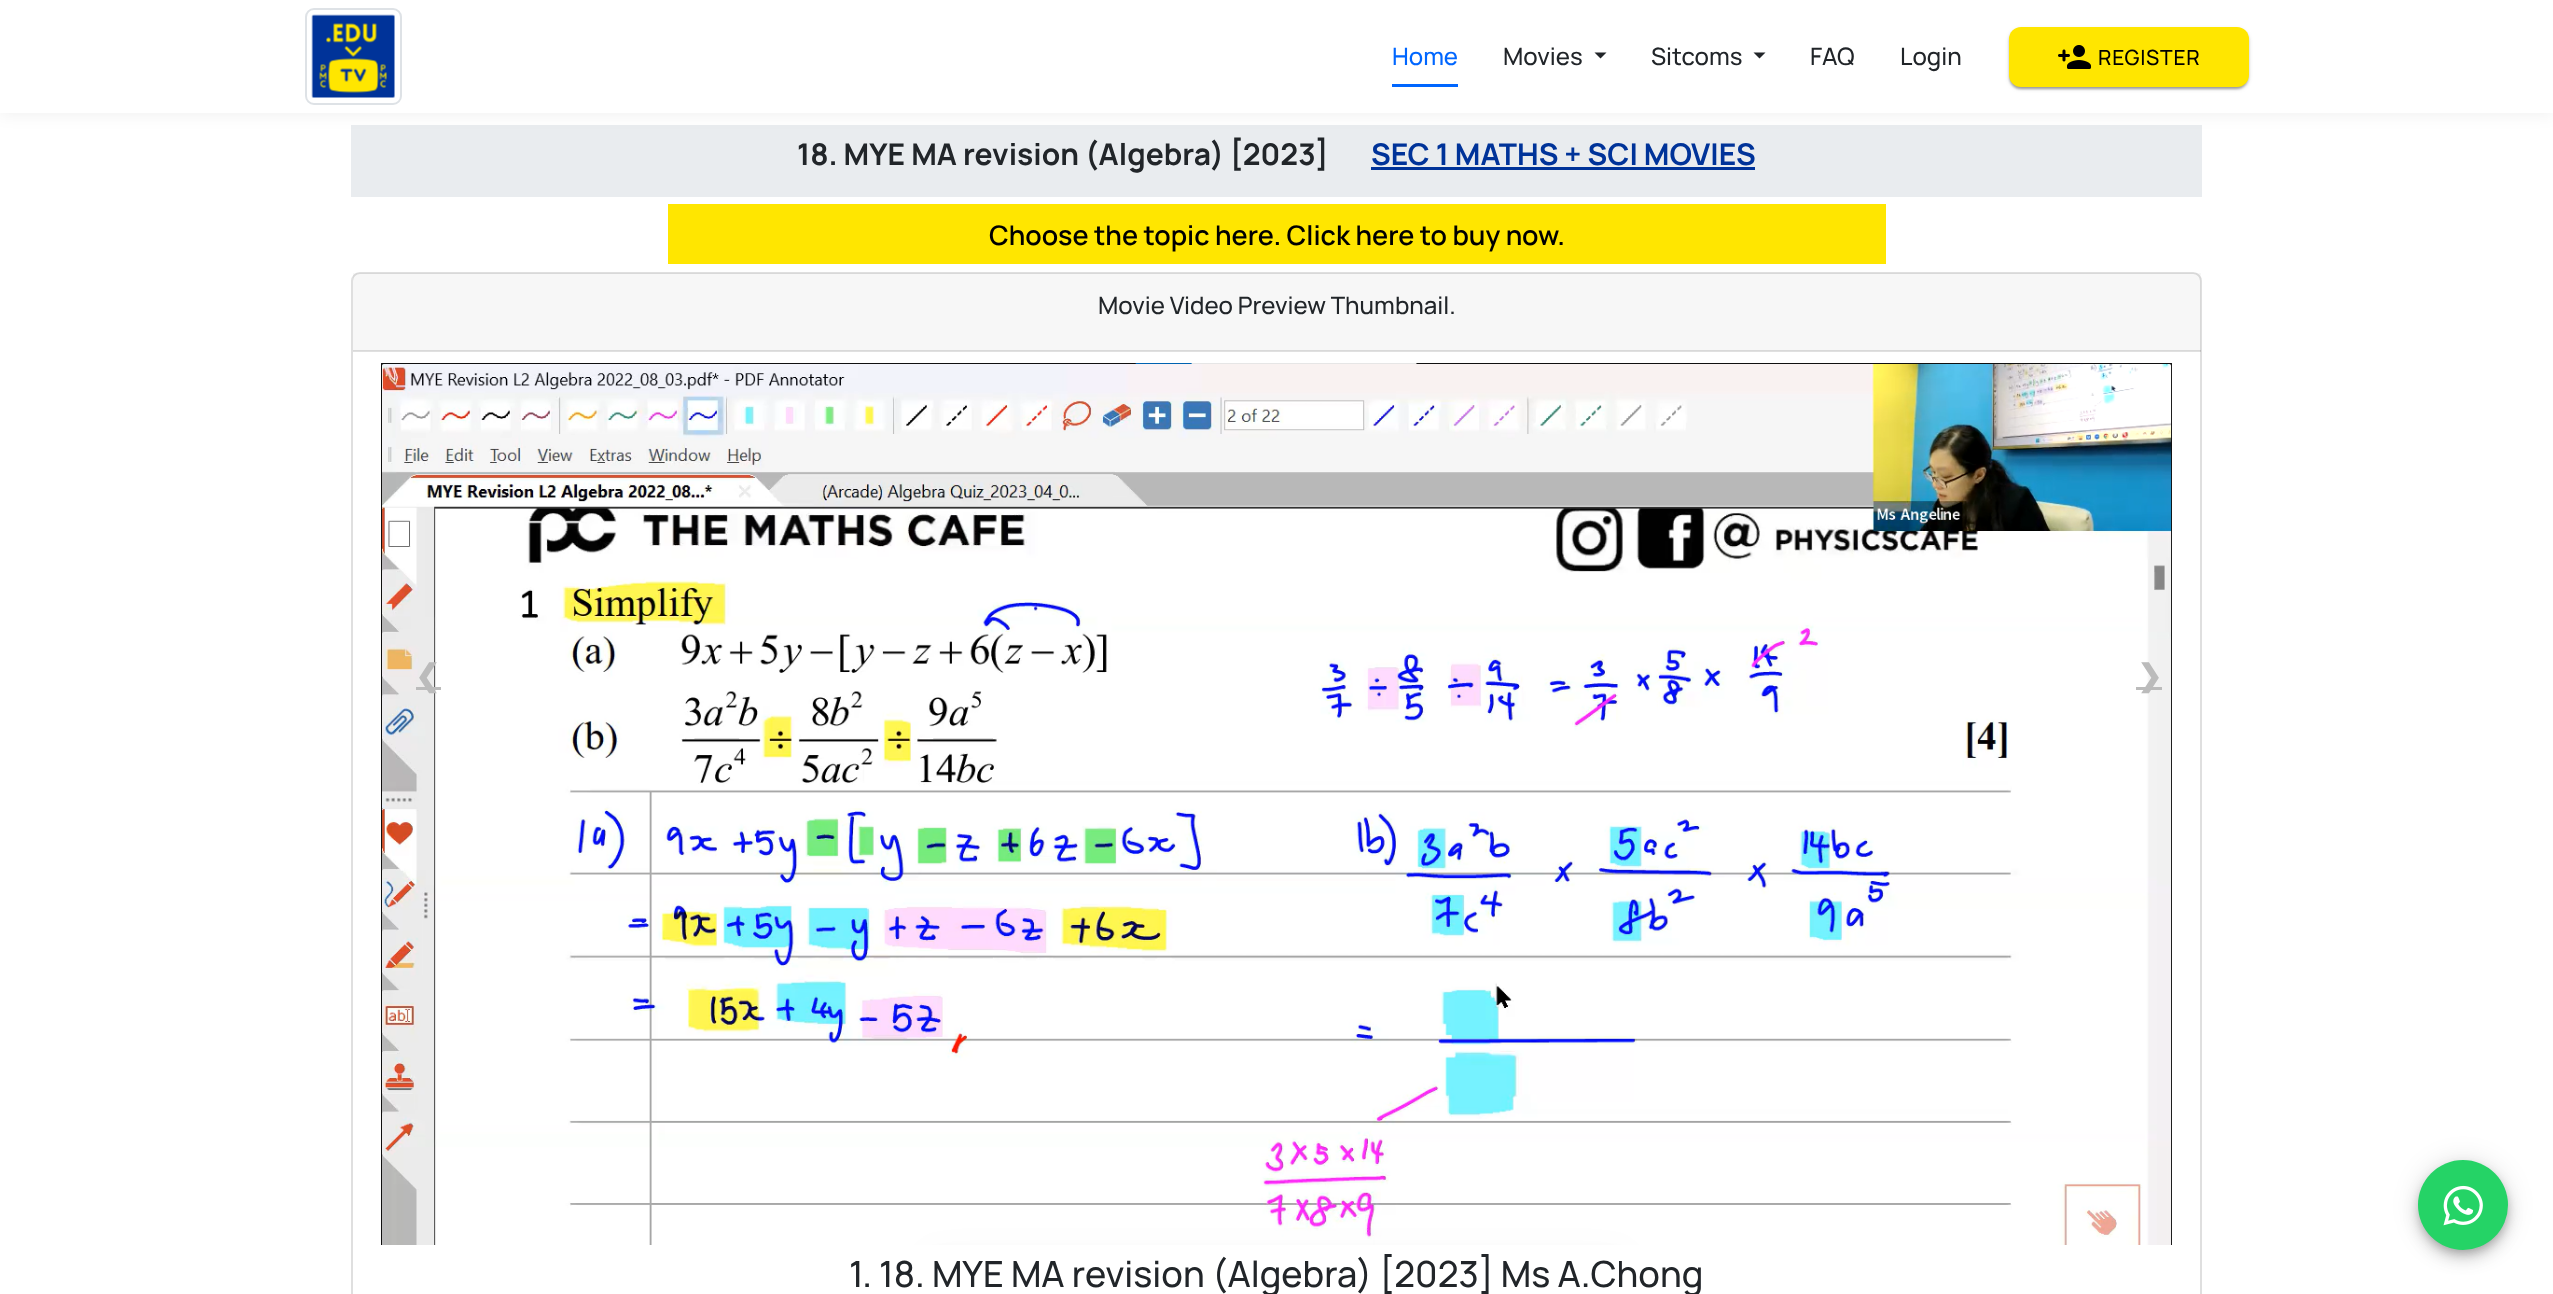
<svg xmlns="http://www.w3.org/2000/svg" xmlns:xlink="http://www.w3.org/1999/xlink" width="2553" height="1294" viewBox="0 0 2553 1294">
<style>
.cls-1{font:500 24px Manrope;fill:#0066ff}
.cls-2{font:500 24px Manrope;fill:#212529}
.cls-3{font:500 21px Manrope;letter-spacing:0.75px;fill:#000000}
.cls-4{font:bold 30px Manrope;fill:#212529}
.cls-5{font:bold 30px Manrope;fill:#003399}
.cls-6{font:600 27px Manrope;fill:#000000}
.cls-7{font:bold 30px DejaVu Sans;fill:#bbbbbb}
.cls-8{font:500 36px Manrope;fill:#212529}
</style>
<rect width="100%" height="100%" fill="#ffffff"/>
<rect fill="#e9ecef" x="351" y="125" width="1851" height="72"/>
<rect fill="#000000" fill-opacity="0.05" filter="blur(7.5px)" x="0" y="3" width="2553" height="113"/>
<rect fill="#ffffff" x="0" y="0" width="2553" height="113"/>
<rect fill="none" stroke="#dee2e6" stroke-width="2" x="306" y="9" width="95" height="95" rx="8"/>
<image xlink:href="image0.png" x="311" y="14" width="84" height="84"/>
<rect fill="#0066ff" x="1392" y="84" width="66" height="3"/>
<path fill="#212529" d="M1594.5 52.5H1606.5L1600.5 58.5Z"/>
<path fill="#212529" d="M1753.5 52.5H1765.5L1759.5 58.5Z"/>
<rect fill="#000000" fill-opacity="0.12" filter="blur(2px)" x="2009" y="29" width="240" height="60" rx="12"/>
<rect fill="#000000" fill-opacity="0.14" filter="blur(1px)" x="2009" y="29" width="240" height="60" rx="12"/>
<rect fill="#000000" fill-opacity="0.2" filter="blur(1px)" x="2010" y="32" width="237" height="57" rx="11"/>
<rect fill="#ffe600" x="2009" y="27" width="240" height="60" rx="12"/>
<image xlink:href="image1.png" x="2058" y="45" width="34" height="24"/>
<rect fill="#003399" x="1371" y="167" width="384" height="3"/>
<rect fill="#ffe600" x="668" y="204" width="1218" height="60"/>
<rect fill="none" stroke="#dfdfdf" stroke-width="2" x="352" y="273" width="1849" height="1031" rx="8"/>
<rect fill="#000000" fill-opacity="0.03" x="353" y="273" width="1848" height="78"/>
<rect fill="#000000" fill-opacity="0.12" x="353" y="350" width="1848" height="2"/>
<image xlink:href="image2.png" x="381" y="363" width="1791" height="882"/>
<rect fill="#bbbbbb" x="416" y="687" width="25" height="3"/>
<rect fill="#bbbbbb" x="2136" y="687" width="26" height="3"/>
<rect fill="#000000" fill-opacity="0.12" filter="blur(13.5px)" x="2418" y="1161" width="90" height="90" rx="45"/>
<rect fill="#000000" fill-opacity="0.14" filter="blur(7.5px)" x="2418" y="1169" width="90" height="90" rx="45"/>
<rect fill="#000000" fill-opacity="0.2" filter="blur(4px)" x="2420" y="1166" width="87" height="87" rx="43.5"/>
<circle fill="#25d366" cx="2463" cy="1205" r="45"/>
<image xlink:href="image3.png" x="2443" y="1185" width="40" height="41"/>
<text class="cls-1" x="1392" y="65">Home</text>
<text class="cls-2" x="1503" y="65">Movies</text>
<text class="cls-2" x="1651" y="65">Sitcoms</text>
<text class="cls-2" x="1810" y="65">FAQ</text>
<text class="cls-2" x="1900" y="65">Login</text>
<text class="cls-3" x="2098" y="65">REGISTER</text>
<text class="cls-4" x="797" y="165">18. MYE MA revision (Algebra) [2023]</text>
<text class="cls-5" x="1371" y="165">SEC 1 MATHS + SCI MOVIES</text>
<text class="cls-6" x="989" y="245">Choose the topic here. Click here to buy now.</text>
<text class="cls-2" x="1098" y="314">Movie Video Preview Thumbnail.</text>
<text class="cls-7" x="415" y="686">❮</text>
<text class="cls-7" x="2137" y="686">❯</text>
<text class="cls-8" x="849" y="1287">1. 18. MYE MA revision (Algebra) [2023] Ms A.Chong</text>
</svg>
